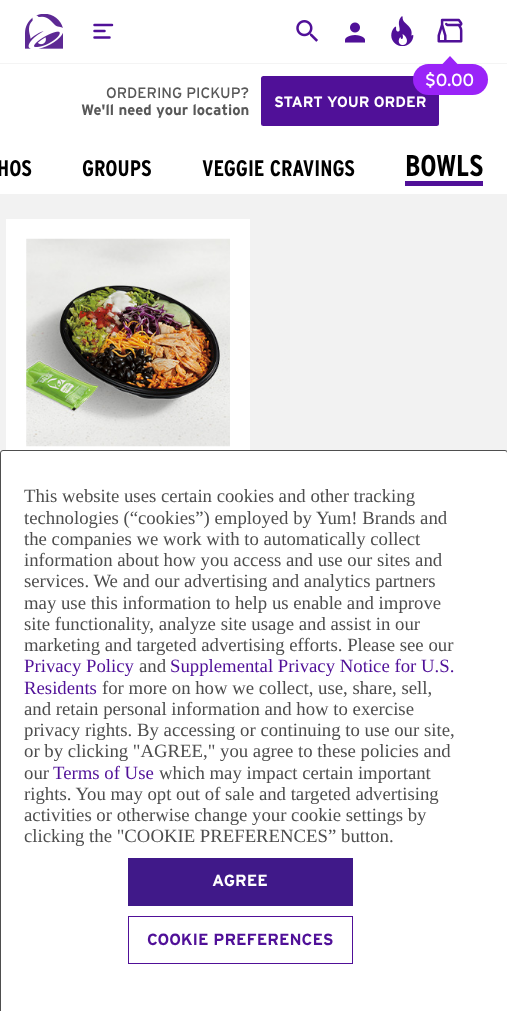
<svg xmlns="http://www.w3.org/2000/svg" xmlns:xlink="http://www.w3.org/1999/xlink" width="507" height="1011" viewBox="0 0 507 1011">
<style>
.cls-1{font:17.5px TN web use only;fill:#ffffff}
.cls-2{font:15px TN web use only;fill:#585858}
.cls-3{font:bold 15px 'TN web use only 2';fill:#585858}
.cls-4{font:bold 15px 'TN web use only 2';fill:#ffffff}
.cls-5{font:bold 22.5px TN web use only;fill:#000000}
.cls-6{font:bold 30px TN web use only;fill:#000000}
.cls-7{font:18.75px Liberation Serif;fill:#4e4e4e}
.cls-8{font:18.75px Liberation Serif;fill:#501098}
.cls-9{font:bold 16.25px 'TN web use only 2';fill:#ffffff}
.cls-10{font:bold 16.25px 'TN web use only 2';fill:#501098}
</style>
<rect width="100%" height="100%" fill="#ffffff"/>
<rect fill="#f4f4f4" x="0" y="63" width="507" height="1"/>
<image xlink:href="image0.png" x="25" y="14" width="38" height="35"/>
<path fill="none" stroke="#501098" stroke-width="2.5" stroke-linecap="round" d="M94.5 25H112M94.5 31H104.5M94.5 37.5H109.5"/>
<image xlink:href="image1.png" x="296" y="20" width="22" height="22"/>
<image xlink:href="image2.png" x="345" y="22" width="20" height="21"/>
<image xlink:href="image3.png" x="391" y="16" width="23" height="30"/>
<image xlink:href="image4.png" x="437" y="18" width="26" height="25"/>
<rect fill="#501098" x="261" y="76" width="178" height="50" rx="2.5"/>
<rect fill="#9a23f8" x="413" y="64" width="75" height="31" rx="15.5"/>
<path fill="#9a23f8" d="M457.5 64H442.5L450 56Z"/>
<rect fill="#501098" x="405" y="181" width="78" height="5"/>
<rect fill="#f2f2f2" x="0" y="194" width="507" height="259"/>
<rect fill="#ffffff" x="6" y="219" width="244" height="231"/>
<image xlink:href="image5.png" x="26" y="238" width="204" height="209"/>
<rect fill="#ffffff" stroke="#4e4e4e" x="0.5" y="450.5" width="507" height="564" rx="2.5"/>
<rect fill="#401989" x="128" y="858" width="225" height="48"/>
<rect fill="none" stroke="#501098" x="128.5" y="916.5" width="224" height="47"/>
<text class="cls-1" x="425" y="86">$0.00</text>
<text class="cls-2" x="106" y="98">ORDERING PICKUP?</text>
<text class="cls-3" x="81" y="115">We'll need your location</text>
<text class="cls-4" x="274" y="107">START YOUR ORDER</text>
<text class="cls-5" x="-3" y="176">HOS</text>
<text class="cls-5" x="82" y="176">GROUPS</text>
<text class="cls-5" x="202" y="176">VEGGIE CRAVINGS</text>
<text class="cls-6" x="405" y="176">BOWLS</text>
<text class="cls-7"><tspan x="24" y="502">This website uses certain cookies and other tracking</tspan><tspan x="24" y="524">technologies (“cookies”) employed by Yum! Brands and</tspan><tspan x="24" y="545">the companies we work with to automatically collect</tspan><tspan x="24" y="566">information about how you access and use our sites and</tspan><tspan x="24" y="587">services. We and our advertising and analytics partners</tspan><tspan x="24" y="609">may use this information to help us enable and improve</tspan><tspan x="24" y="630">site functionality, analyze site usage and assist in our</tspan><tspan x="24" y="651">marketing and targeted advertising efforts. Please see our</tspan></text>
<text class="cls-8" x="24" y="672">Privacy Policy</text>
<text class="cls-7" x="139" y="672">and</text>
<text class="cls-8" x="170" y="672">Supplemental Privacy Notice for U.S.</text>
<text class="cls-8" x="24" y="694">Residents</text>
<text class="cls-7" x="102" y="694">for more on how we collect, use, share, sell,</text>
<text class="cls-7"><tspan x="24" y="715">and retain personal information and how to exercise</tspan><tspan x="24" y="736">privacy rights. By accessing or continuing to use our site,</tspan><tspan x="24" y="757">or by clicking "AGREE," you agree to these policies and</tspan><tspan x="24" y="779">our</tspan></text>
<text class="cls-8" x="53" y="779">Terms of Use</text>
<text class="cls-7" x="159" y="779">which may impact certain important</text>
<text class="cls-7"><tspan x="24" y="800">rights. You may opt out of sale and targeted advertising</tspan><tspan x="24" y="821">activities or otherwise change your cookie settings by</tspan><tspan x="24" y="842">clicking the "COOKIE PREFERENCES” button.</tspan></text>
<text class="cls-9" x="212" y="886">AGREE</text>
<text class="cls-10" x="147" y="945">COOKIE PREFERENCES</text>
</svg>
